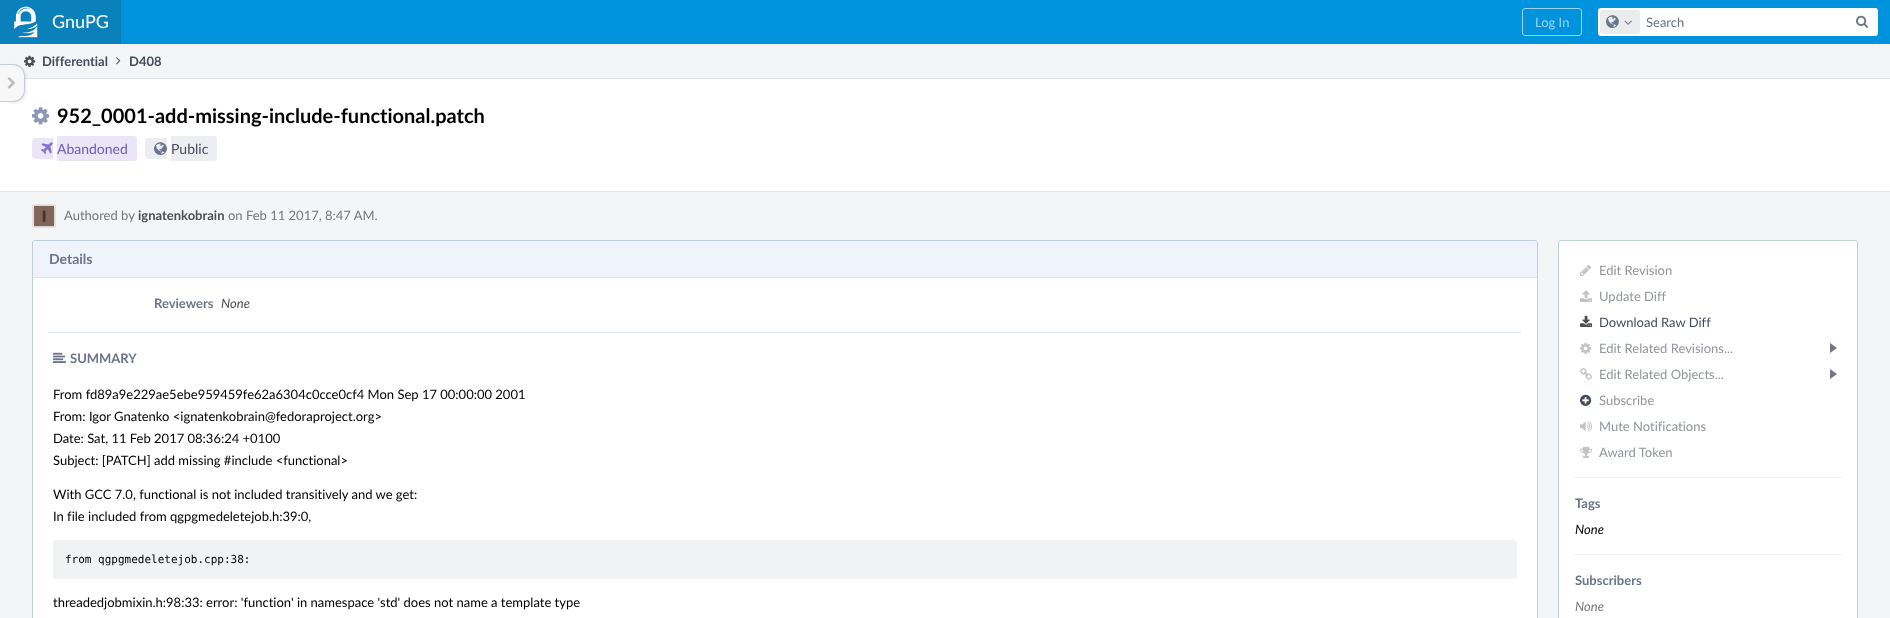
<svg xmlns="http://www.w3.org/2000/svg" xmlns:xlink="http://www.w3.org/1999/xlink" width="1890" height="618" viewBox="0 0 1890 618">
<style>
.cls-1{font:18px Lato;fill:#ffffff}
.cls-2{font:13px Lato;fill:#99d4f1}
.cls-3{font:13px Lato;fill:#6b748c}
.cls-4{font:bold 13px Lato;fill:#464c5c}
.cls-5{font:bold 20px Lato;fill:#000000}
.cls-6{font:14px Lato;fill:#6e5cb6}
.cls-7{font:14px Lato;fill:#464c5c}
.cls-8{font:13px Lato;fill:#74777d}
.cls-9{font:bold 13px Lato;fill:#4b4d51}
.cls-10{font:bold 14px Lato;fill:#6b748c}
.cls-11{font:bold 13px Lato;fill:#6b748c}
.cls-12{font:italic 13px Lato;fill:#4b4d51}
.cls-13{font:13px Lato;fill:#000000}
.cls-14{font:11px DejaVu Sans Mono;fill:#000000}
.cls-15{font:13px Lato;fill:#92969d}
.cls-16{font:13px Lato;fill:#464c5c}
.cls-17{font:italic 13px Lato;fill:#000000}
.cls-18{font:italic 13px Lato;fill:#74777d}
</style>
<rect width="100%" height="100%" fill="#f3f5f7"/>
<rect fill="#0093dd" x="121" y="0" width="1769" height="44"/>
<rect fill="#0b81bc" x="0" y="0" width="121" height="44"/>
<image xlink:href="image0.png" x="14" y="6" width="24" height="32"/>
<rect fill="none" stroke="#99d4f1" x="1522.5" y="8.5" width="59" height="27" rx="2.5"/>
<rect fill="#ffffff" x="1598" y="8" width="280" height="28" rx="3"/>
<rect fill="#ebecee" x="1600" y="10" width="40" height="24" rx="3"/>
<image xlink:href="image1.png" x="1606" y="15" width="13" height="14"/>
<image xlink:href="image2.png" x="1624" y="20" width="8" height="5"/>
<image xlink:href="image3.png" x="1856" y="15" width="12" height="13"/>
<rect fill="#e0e2e4" x="25" y="78" width="1865" height="1"/>
<image xlink:href="image5.png" x="24" y="55" width="12" height="12"/>
<rect fill="#ffffff" x="0" y="79" width="1890" height="112"/>
<rect fill="#000000" fill-opacity="0.1" filter="blur(1px)" x="1" y="65" width="25" height="38" rx="12"/>
<path fill="#f7f7f7" d="M0 65H13C19 65 24 70 24 76V90C24 96 19 101 13 101H0Z"/>
<path fill="#c7ccd9" fill-rule="evenodd" d="M0 64H13C19.5 64 25 69.5 25 76V90C25 96.5 19.5 102 13 102H0ZM0 65H13C19 65 24 70 24 76V90C24 96 19 101 13 101H0Z"/>
<image xlink:href="image4.png" x="7" y="77" width="8" height="12"/>
<image xlink:href="image6.png" x="116" y="57" width="5" height="8"/>
<rect fill="#e7e7e7" x="0" y="191" width="1890" height="1"/>
<image xlink:href="image7.png" x="32" y="107" width="18" height="18"/>
<path fill="#eae6f7" d="M35 138H53V159H35C33.5 159 32 157.5 32 156V141C32 139.5 33.5 138 35 138Z"/>
<path fill="#eae6f7" d="M57 136H134C135.5 136 137 137.5 137 139V158C137 159.5 135.5 161 134 161H57Z"/>
<image xlink:href="image8.png" x="41" y="142" width="12" height="12"/>
<path fill="#edeef2" d="M148 138H167V159H148C146.5 159 145 157.5 145 156V141C145 139.5 146.5 138 148 138Z"/>
<path fill="#edeef2" d="M171 136H214C215.5 136 217 137.5 217 139V158C217 159.5 215.5 161 214 161H171Z"/>
<image xlink:href="image9.png" x="154" y="142" width="13" height="14"/>
<image xlink:href="image10.png" x="32" y="204" width="24" height="24"/>
<rect fill="#ffffff" stroke="#bfcfda" x="32.5" y="240.5" width="1505" height="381" rx="2.5"/>
<path fill="#eff3fc" d="M36 241H1534C1535.5 241 1537 242.5 1537 244V278H33V244C33 242.5 34.5 241 36 241Z"/>
<rect fill="#dde8ef" x="33" y="277" width="1504" height="1"/>
<rect fill="#dde8ef" x="49" y="332" width="1472" height="1"/>
<image xlink:href="image11.png" x="53" y="352" width="13" height="11"/>
<rect fill="#f0f2f4" x="53" y="540" width="1464" height="39" rx="3"/>
<rect fill="#ffffff" stroke="#bfcfda" x="1558.5" y="240.5" width="299" height="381" rx="2.5"/>
<image xlink:href="image12.png" x="1580" y="265" width="11" height="11"/>
<image xlink:href="image13.png" x="1580" y="290" width="12" height="12"/>
<image xlink:href="image14.png" x="1580" y="315" width="13" height="12"/>
<image xlink:href="image15.png" x="1580" y="342" width="12" height="12"/>
<path fill="#74777d" d="M1830 353V343L1837 348Z"/>
<image xlink:href="image16.png" x="1580" y="368" width="12" height="12"/>
<path fill="#74777d" d="M1830 379V369L1837 374Z"/>
<image xlink:href="image17.png" x="1580" y="394" width="12" height="12"/>
<image xlink:href="image18.png" x="1580" y="421" width="12" height="11"/>
<image xlink:href="image19.png" x="1580" y="446" width="12" height="12"/>
<rect fill="#ebecee" x="1575" y="477" width="266" height="1"/>
<rect fill="#ebecee" x="1575" y="554" width="266" height="1"/>
<text class="cls-1" x="52" y="28">GnuPG</text>
<text class="cls-2" x="1535" y="27">Log In</text>
<text class="cls-3" x="1646" y="27">Search</text>
<text class="cls-4" x="42" y="66">Differential</text>
<text class="cls-4" x="129" y="66">D408</text>
<text class="cls-5" x="57" y="123">952_0001-add-missing-include-functional.patch</text>
<text class="cls-6" x="57" y="154">Abandoned</text>
<text class="cls-7" x="171" y="154">Public</text>
<text class="cls-8" x="64" y="220">Authored by</text>
<text class="cls-9" x="138" y="220">ignatenkobrain</text>
<text class="cls-8" x="228" y="220">on Feb 11 2017, 8:47 AM.</text>
<text class="cls-10" x="49" y="264">Details</text>
<text class="cls-11" x="154" y="308">Reviewers</text>
<text class="cls-12" x="221" y="308">None</text>
<text class="cls-11" x="70" y="363">SUMMARY</text>
<text class="cls-13"><tspan x="53" y="399">From fd89a9e229ae5ebe959459fe62a6304c0cce0cf4 Mon Sep 17 00:00:00 2001</tspan><tspan x="53" y="421">From: Igor Gnatenko &lt;ignatenkobrain@fedoraproject.org&gt;</tspan><tspan x="53" y="443">Date: Sat, 11 Feb 2017 08:36:24 +0100</tspan><tspan x="53" y="465">Subject: [PATCH] add missing #include &lt;functional&gt;</tspan></text>
<text class="cls-13"><tspan x="53" y="499">With GCC 7.0, functional is not included transitively and we get:</tspan><tspan x="53" y="521">In file included from qgpgmedeletejob.h:39:0,</tspan></text>
<text class="cls-14" x="65" y="563">from qgpgmedeletejob.cpp:38:</text>
<text class="cls-13" x="53" y="607">threadedjobmixin.h:98:33: error: 'function' in namespace 'std' does not name a template type</text>
<text class="cls-15" x="1599" y="275">Edit Revision</text>
<text class="cls-15" x="1599" y="301">Update Diff</text>
<text class="cls-16" x="1599" y="327">Download Raw Diff</text>
<text class="cls-15" x="1599" y="353">Edit Related Revisions...</text>
<text class="cls-15" x="1599" y="379">Edit Related Objects...</text>
<text class="cls-15" x="1599" y="405">Subscribe</text>
<text class="cls-15" x="1599" y="431">Mute Notifications</text>
<text class="cls-15" x="1599" y="457">Award Token</text>
<text class="cls-11" x="1575" y="508">Tags</text>
<text class="cls-17" x="1575" y="534">None</text>
<text class="cls-11" x="1575" y="585">Subscribers</text>
<text class="cls-18" x="1575" y="611">None</text>
</svg>
